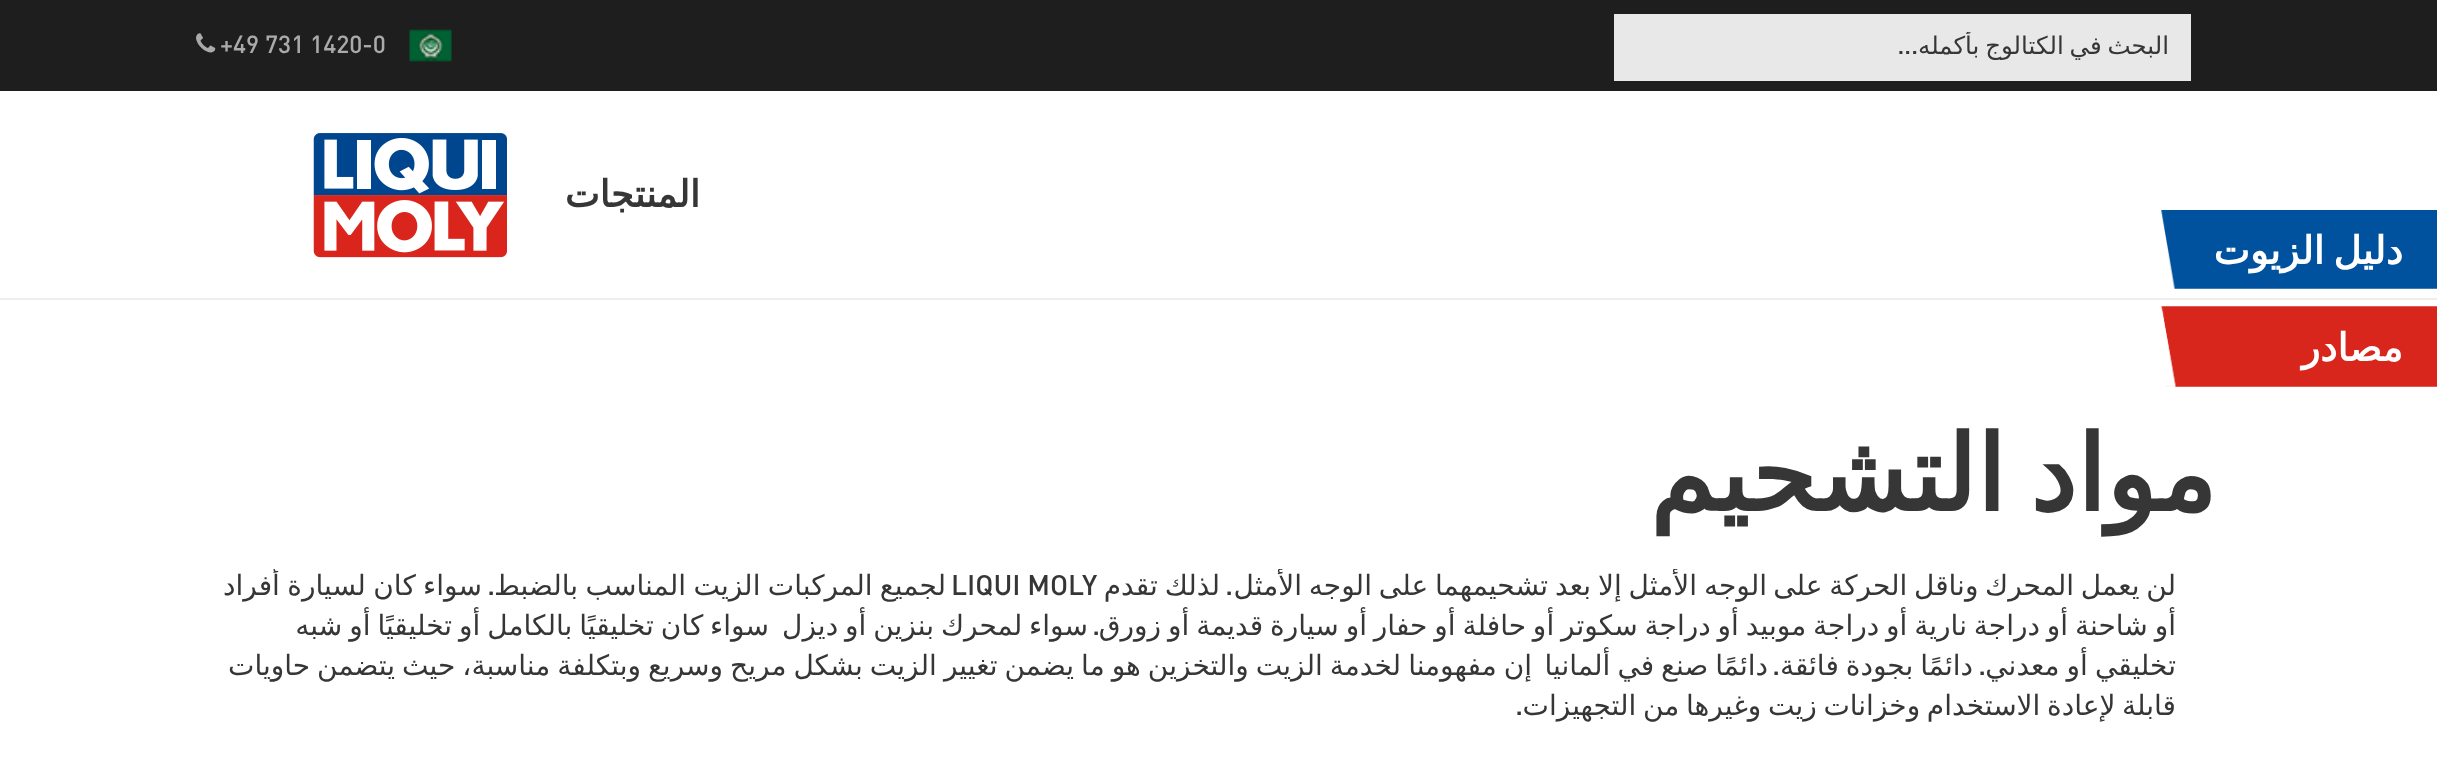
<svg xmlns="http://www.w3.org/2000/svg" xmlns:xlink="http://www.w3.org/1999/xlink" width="2437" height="770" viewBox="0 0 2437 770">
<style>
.cls-1{font:24.5px DejaVu Sans;direction:rtl;fill:#363636}
.cls-2{font:500 24.5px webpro;direction:rtl;fill:#363636}
.cls-3{font:500 24.5px webpro;fill:#aaaaaa}
.cls-4{font:bold 37px DejaVu Sans;direction:rtl;fill:#363636}
.cls-5{font:bold 38.5px DejaVu Sans;direction:rtl;fill:#ffffff}
.cls-6{font:bold 105px DejaVu Sans;direction:rtl;fill:#363636}
.cls-7{font:28px DejaVu Sans;direction:rtl;fill:#363636}
.cls-8{font:500 28px webpro;direction:rtl;fill:#363636}
.cls-9{font:500 28px webpro;fill:#363636}
</style>
<defs>
<clipPath id="clip1"><rect x="1635" y="32" width="535" height="28"/></clipPath>
<clipPath id="clip2"><rect x="222" y="569" width="1995" height="159"/></clipPath>
</defs>
<rect width="100%" height="100%" fill="#ffffff"/>
<rect fill="#eeeeee" x="0" y="298" width="2437" height="2"/>
<rect fill="#1e1e1e" x="0" y="0" width="2437" height="91"/>
<rect fill="#e8e8e8" x="1614" y="14" width="577" height="67"/>
<image xlink:href="image0.png" x="409" y="29" width="43" height="33"/>
<image xlink:href="image1.png" x="196" y="33" width="20" height="20"/>
<image xlink:href="image2.png" x="313" y="133" width="194" height="125"/>
<image xlink:href="image3.png" x="2161" y="210" width="276" height="79"/>
<image xlink:href="image4.png" x="2161" y="306" width="276" height="81"/>
<g clip-path="url(#clip1)">
<text class="cls-1" x="2169" y="54" word-spacing="-2">البحث في الكتالوج بأكمله</text>
</g>
<text class="cls-2" x="1918" y="54">...</text>
<text class="cls-3" x="220" y="53">+49 731 1420-0</text>
<text class="cls-4" x="700" y="207">المنتجات</text>
<text class="cls-5" x="2403" y="264" word-spacing="-3">دليل الزيوت</text>
<text class="cls-5" x="2403" y="361">مصادر</text>
<text class="cls-6" x="2216" y="511" word-spacing="-9">مواد التشحيم</text>
<text class="cls-7" x="2176" y="595" word-spacing="-2.25">لن يعمل المحرك وناقل الحركة على</text>
<g clip-path="url(#clip2)">
<text class="cls-7" x="1767" y="595" word-spacing="-2">الوجه الأمثل إلا بعد تشحيمهما على الوجه الأمثل</text>
</g>
<text class="cls-8" x="1233" y="595">.</text>
<text class="cls-7" x="1220" y="595" word-spacing="-2">لذلك تقدم</text>
<text class="cls-9" x="951" y="595">LIQUI MOLY</text>
<text class="cls-7" x="946" y="595" word-spacing="-1.5">لجميع المركبات الزيت المناسب بالضبط</text>
<text class="cls-8" x="495" y="595">.</text>
<g clip-path="url(#clip2)">
<text class="cls-7" x="482" y="595" word-spacing="-1.5">سواء كان لسيارة أفراد</text>
</g>
<text class="cls-7" x="2176" y="635" word-spacing="-2">أو شاحنة أو دراجة نارية أو دراجة موبيد أو دراجة سكوتر أو حافلة أو حفار أو سيارة قديمة أو زورق</text>
<text class="cls-8" x="1100" y="635">.</text>
<text class="cls-7" x="1088" y="635" word-spacing="-2">سواء لمحرك بنزين أو ديزل</text>
<text class="cls-7" x="769" y="635" word-spacing="-2">سواء كان تخليقيًا بالكامل أو تخليقيًا أو شبه</text>
<text class="cls-7" x="2176" y="675" word-spacing="-1.9">تخليقي أو معدني</text>
<text class="cls-8" x="1986" y="675">.</text>
<text class="cls-7" x="1973" y="675" word-spacing="-1.9">دائمًا بجودة فائقة</text>
<text class="cls-8" x="1780" y="675">.</text>
<text class="cls-7" x="1768" y="675" word-spacing="-1.9">دائمًا صنع في ألمانيا</text>
<text class="cls-7" x="1532" y="675" word-spacing="-1.9">إن مفهومنا لخدمة الزيت والتخزين هو ما يضمن تغيير الزيت بشكل مريح وسريع وبتكلفة مناسبة، حيث يتضمن حاويات</text>
<text class="cls-7" x="2176" y="715" word-spacing="-2.25">قابلة لإعادة الاستخدام وخزانات زيت وغيرها من التجهيزات</text>
<text class="cls-8" x="1523" y="715">.</text>
</svg>
